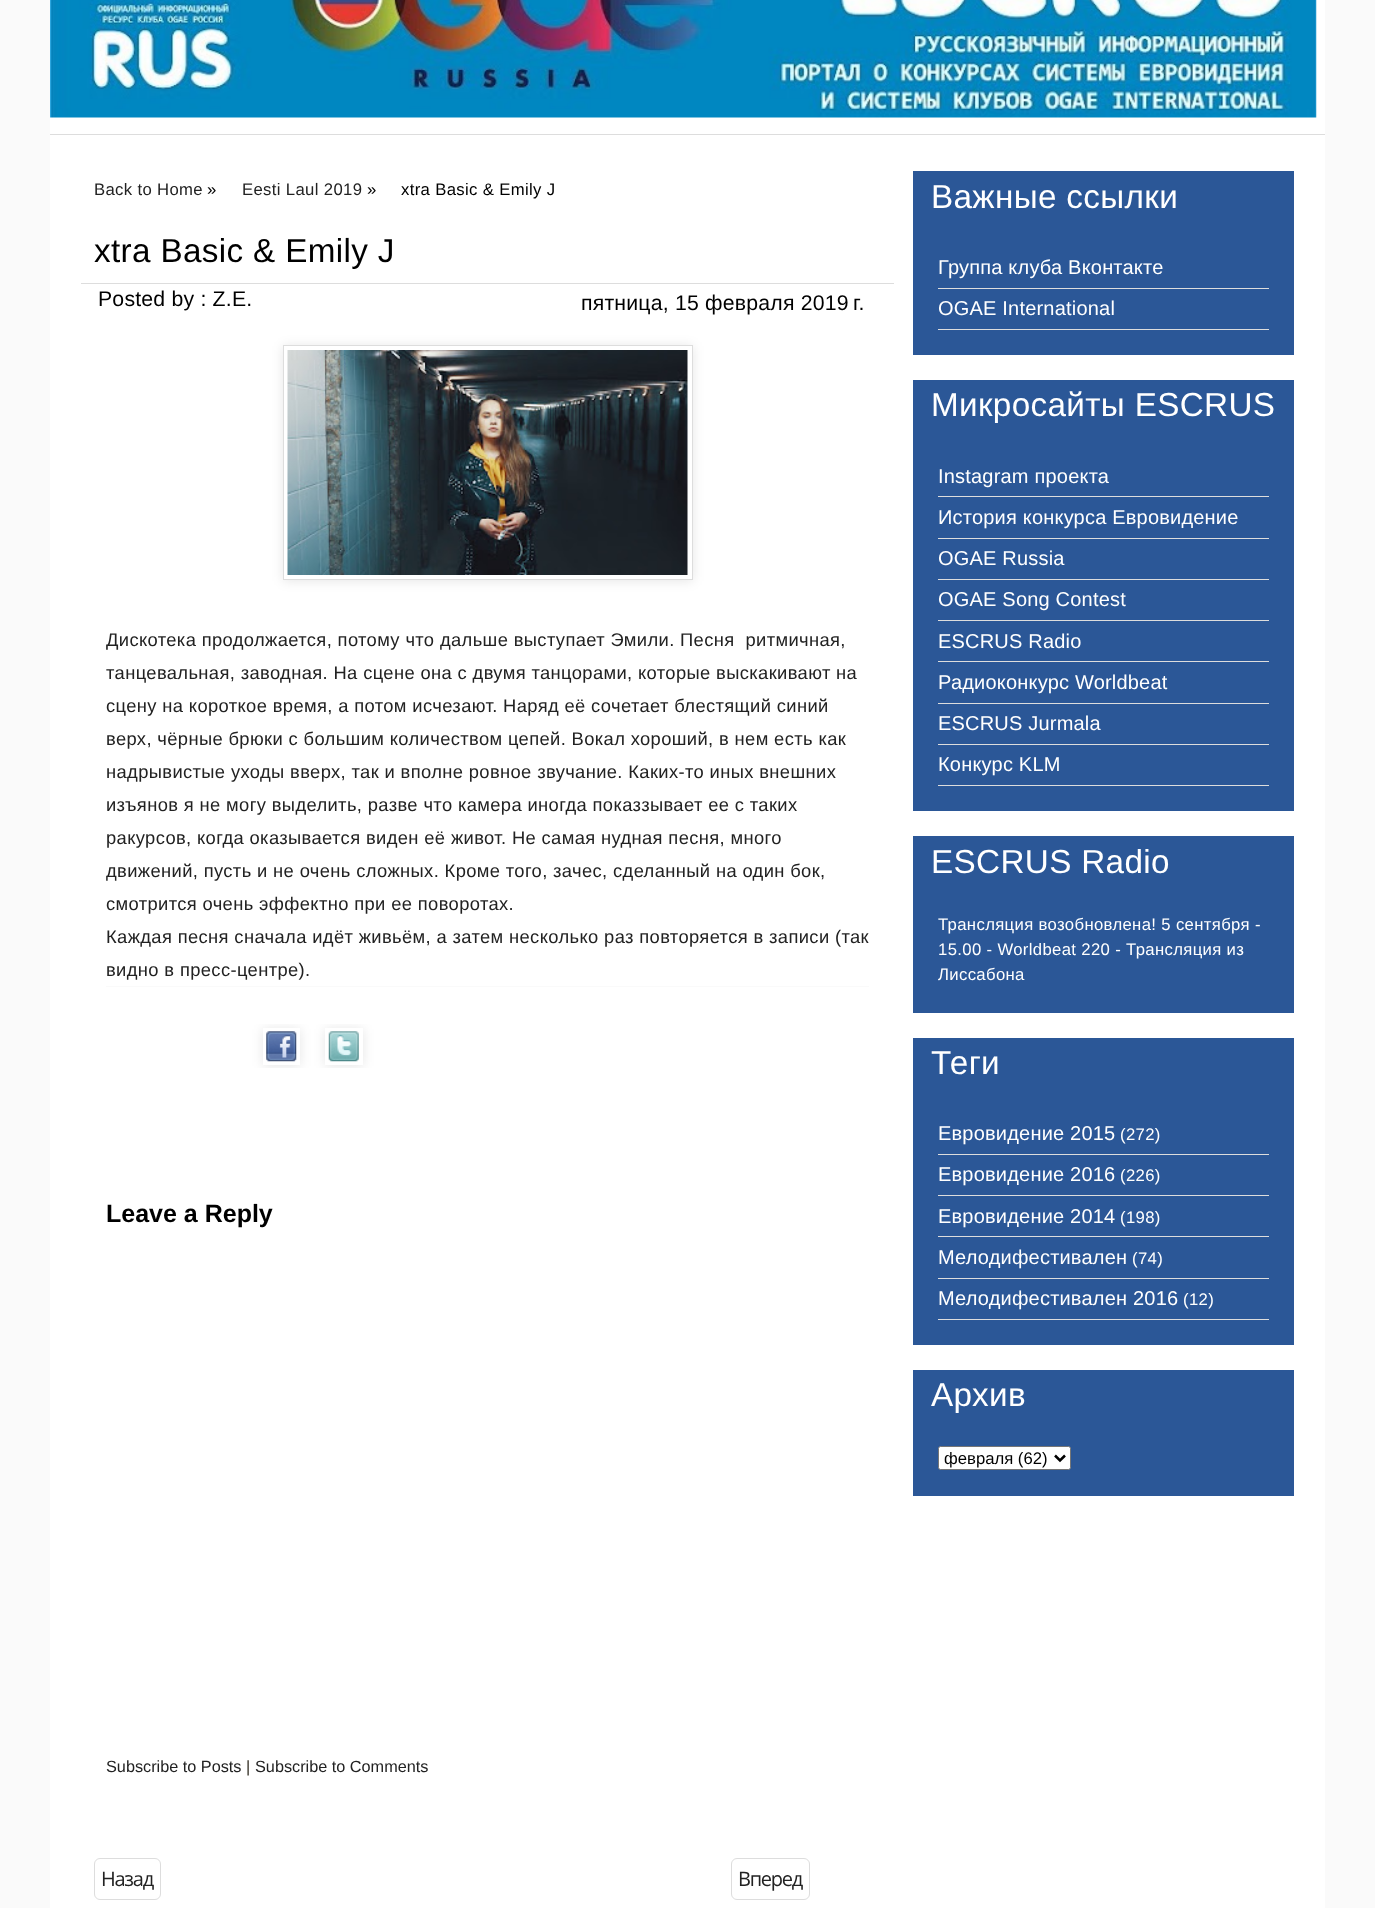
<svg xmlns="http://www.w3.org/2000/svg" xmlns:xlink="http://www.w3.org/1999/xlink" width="1375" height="1908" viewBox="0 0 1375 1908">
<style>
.cls-1{font:16.7px Liberation Sans;letter-spacing:0.35px;fill:#222222}
.cls-2{font:16.7px Liberation Sans;letter-spacing:0.35px;fill:#000000}
.cls-3{font:33.25px Liberation Sans;letter-spacing:0.35px;fill:#000000}
.cls-4{font:21.25px Liberation Sans;letter-spacing:0.2px;fill:#000000}
.cls-5{font:18.35px Liberation Sans;letter-spacing:0.37px;fill:#222222}
.cls-6{font:bold 25px Liberation Sans;fill:#000000}
.cls-7{font:16.25px Liberation Sans;fill:#222222}
.cls-8{font:16.25px Liberation Sans;fill:#312c21}
.cls-9{font:20px Open Sans;letter-spacing:-1.25px;fill:#222222}
.cls-10{font:33.25px Liberation Sans;letter-spacing:0.35px;fill:#ffffff}
.cls-11{font:20px Liberation Sans;letter-spacing:0.2px;fill:#ffffff}
.cls-12{font:16.7px Liberation Sans;letter-spacing:0.35px;fill:#ffffff}
.cls-13{font:16.7px Liberation Sans;fill:#000000}
</style>
<defs>
<clipPath id="clip1"><path d="M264 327H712V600H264ZM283 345H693V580H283Z" clip-rule="evenodd"/></clipPath>
<clipPath id="clip2"><rect x="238" y="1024" width="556" height="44"/></clipPath>
<clipPath id="clip3"><path d="M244 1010H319V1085H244ZM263 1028H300V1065H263Z" clip-rule="evenodd"/></clipPath>
<clipPath id="clip4"><path d="M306 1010H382V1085H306ZM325 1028H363V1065H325Z" clip-rule="evenodd"/></clipPath>
</defs>
<rect width="100%" height="100%" fill="#fafafa"/>
<rect fill="#ffffff" x="50" y="0" width="1275" height="1908"/>
<rect fill="#dddddd" x="50" y="134" width="1275" height="1"/>
<image xlink:href="image0.png" x="50" y="0" width="1267" height="118"/>
<rect fill="#dddddd" x="81" y="283" width="813" height="1"/>
<g clip-path="url(#clip1)">
<rect fill="#000000" fill-opacity="0.1" filter="blur(6px)" x="283" y="346" width="410" height="235"/>
</g>
<rect fill="none" stroke="#dddddd" x="283.5" y="345.5" width="409" height="234"/>
<image xlink:href="image1.png" x="287" y="350" width="401" height="225"/>
<rect fill="#fafafa" x="106" y="986" width="763" height="1"/>
<g clip-path="url(#clip2)">
<g clip-path="url(#clip3)">
<rect fill="#000000" fill-opacity="0.1" filter="blur(6px)" x="263" y="1029" width="37" height="37"/>
</g>
</g>
<image xlink:href="image2.png" x="266" y="1031" width="31" height="31"/>
<g clip-path="url(#clip2)">
<g clip-path="url(#clip4)">
<rect fill="#000000" fill-opacity="0.1" filter="blur(6px)" x="325" y="1029" width="38" height="37"/>
</g>
</g>
<image xlink:href="image3.png" x="328" y="1031" width="31" height="31"/>
<rect fill="none" stroke="#dddddd" x="94.5" y="1858.5" width="66" height="41" rx="5.5"/>
<rect fill="none" stroke="#dddddd" x="731.5" y="1858.5" width="78" height="41" rx="5.5"/>
<rect fill="#2b5797" x="913" y="171" width="381" height="184"/>
<rect fill="#dddddd" x="938" y="288" width="331" height="1"/>
<rect fill="#dddddd" x="938" y="329" width="331" height="1"/>
<rect fill="#2b5797" x="913" y="380" width="381" height="431"/>
<rect fill="#dddddd" x="938" y="496" width="331" height="1"/>
<rect fill="#dddddd" x="938" y="538" width="331" height="1"/>
<rect fill="#dddddd" x="938" y="579" width="331" height="1"/>
<rect fill="#dddddd" x="938" y="620" width="331" height="1"/>
<rect fill="#dddddd" x="938" y="661" width="331" height="1"/>
<rect fill="#dddddd" x="938" y="703" width="331" height="1"/>
<rect fill="#dddddd" x="938" y="744" width="331" height="1"/>
<rect fill="#dddddd" x="938" y="785" width="331" height="1"/>
<rect fill="#2b5797" x="913" y="836" width="381" height="177"/>
<rect fill="#2b5797" x="913" y="1038" width="381" height="307"/>
<rect fill="#dddddd" x="938" y="1154" width="331" height="1"/>
<rect fill="#dddddd" x="938" y="1195" width="331" height="1"/>
<rect fill="#dddddd" x="938" y="1236" width="331" height="1"/>
<rect fill="#dddddd" x="938" y="1278" width="331" height="1"/>
<rect fill="#dddddd" x="938" y="1319" width="331" height="1"/>
<rect fill="#2b5797" x="913" y="1370" width="381" height="126"/>
<rect fill="#ffffff" stroke="#767676" x="938.5" y="1446.5" width="132" height="23" rx="2"/>
<path fill="none" stroke="#000000" stroke-width="2.5" d="M1055 1455.5L1060 1460.5L1065 1455.5"/>
<text class="cls-1" x="94" y="195">Back to Home</text>
<text class="cls-2" x="207" y="195">»</text>
<text class="cls-1" x="242" y="195">Eesti Laul 2019</text>
<text class="cls-2" x="367" y="195">»</text>
<text class="cls-2" x="401" y="195">xtra Basic &amp; Emily J</text>
<text class="cls-3" x="94" y="262">xtra Basic &amp; Emily J</text>
<text class="cls-4" x="98" y="306">Posted by : Z.E.</text>
<text class="cls-4" x="581" y="310">пятница, 15 февраля 2019 г.</text>
<text class="cls-5" xml:space="preserve"><tspan x="106" y="646">Дискотека продолжается, потому что дальше выступает Эмили. Песня  ритмичная,</tspan><tspan x="106" y="679">танцевальная, заводная. На сцене она с двумя танцорами, которые выскакивают на</tspan><tspan x="106" y="712">сцену на короткое время, а потом исчезают. Наряд её сочетает блестящий синий</tspan><tspan x="106" y="745">верх, чёрные брюки с большим количеством цепей. Вокал хороший, в нем есть как</tspan><tspan x="106" y="778">надрывистые уходы вверх, так и вполне ровное звучание. Каких-то иных внешних</tspan><tspan x="106" y="811">изъянов я не могу выделить, разве что камера иногда показзывает ее с таких</tspan><tspan x="106" y="844">ракурсов, когда оказывается виден её живот. Не самая нудная песня, много</tspan><tspan x="106" y="877">движений, пусть и не очень сложных. Кроме того, зачес, сделанный на один бок,</tspan><tspan x="106" y="910">смотрится очень эффектно при ее поворотах.</tspan><tspan x="106" y="943">Каждая песня сначала идёт живьём, а затем несколько раз повторяется в записи (так</tspan><tspan x="106" y="976">видно в пресс-центре).</tspan></text>
<text class="cls-6" x="106" y="1222">Leave a Reply</text>
<text class="cls-7" x="106" y="1772">Subscribe to Posts</text>
<text class="cls-8" x="246" y="1772">|</text>
<text class="cls-7" x="255" y="1772">Subscribe to Comments</text>
<text class="cls-9" x="101" y="1886">Назад</text>
<text class="cls-9" x="738" y="1886">Вперед</text>
<text class="cls-10" x="931" y="208">Важные ссылки</text>
<text class="cls-11" x="938" y="274">Группа клуба Вконтакте</text>
<text class="cls-11" x="938" y="315">OGAE International</text>
<text class="cls-10" x="931" y="416">Микросайты ESCRUS</text>
<text class="cls-11" x="938" y="483">Instagram проекта</text>
<text class="cls-11" x="938" y="524">История конкурса Евровидение</text>
<text class="cls-11" x="938" y="565">OGAE Russia</text>
<text class="cls-11" x="938" y="606">OGAE Song Contest</text>
<text class="cls-11" x="938" y="648">ESCRUS Radio</text>
<text class="cls-11" x="938" y="689">Радиоконкурс Worldbeat</text>
<text class="cls-11" x="938" y="730">ESCRUS Jurmala</text>
<text class="cls-11" x="938" y="771">Конкурс KLM</text>
<text class="cls-10" x="931" y="873">ESCRUS Radio</text>
<text class="cls-12"><tspan x="938" y="930">Трансляция возобновлена! 5 сентября -</tspan><tspan x="938" y="955">15.00 - Worldbeat 220 - Трансляция из</tspan><tspan x="938" y="980">Лиссабона</tspan></text>
<text class="cls-10" x="931" y="1074">Теги</text>
<text class="cls-11" x="938" y="1140">Евровидение 2015</text>
<text class="cls-12" x="1120" y="1140">(272)</text>
<text class="cls-11" x="938" y="1181">Евровидение 2016</text>
<text class="cls-12" x="1120" y="1181">(226)</text>
<text class="cls-11" x="938" y="1223">Евровидение 2014</text>
<text class="cls-12" x="1120" y="1223">(198)</text>
<text class="cls-11" x="938" y="1264">Мелодифестивален</text>
<text class="cls-12" x="1132" y="1264">(74)</text>
<text class="cls-11" x="938" y="1305">Мелодифестивален 2016</text>
<text class="cls-12" x="1183" y="1305">(12)</text>
<text class="cls-10" x="931" y="1406">Архив</text>
<text class="cls-13" x="944" y="1464">февраля (62)</text>
</svg>
